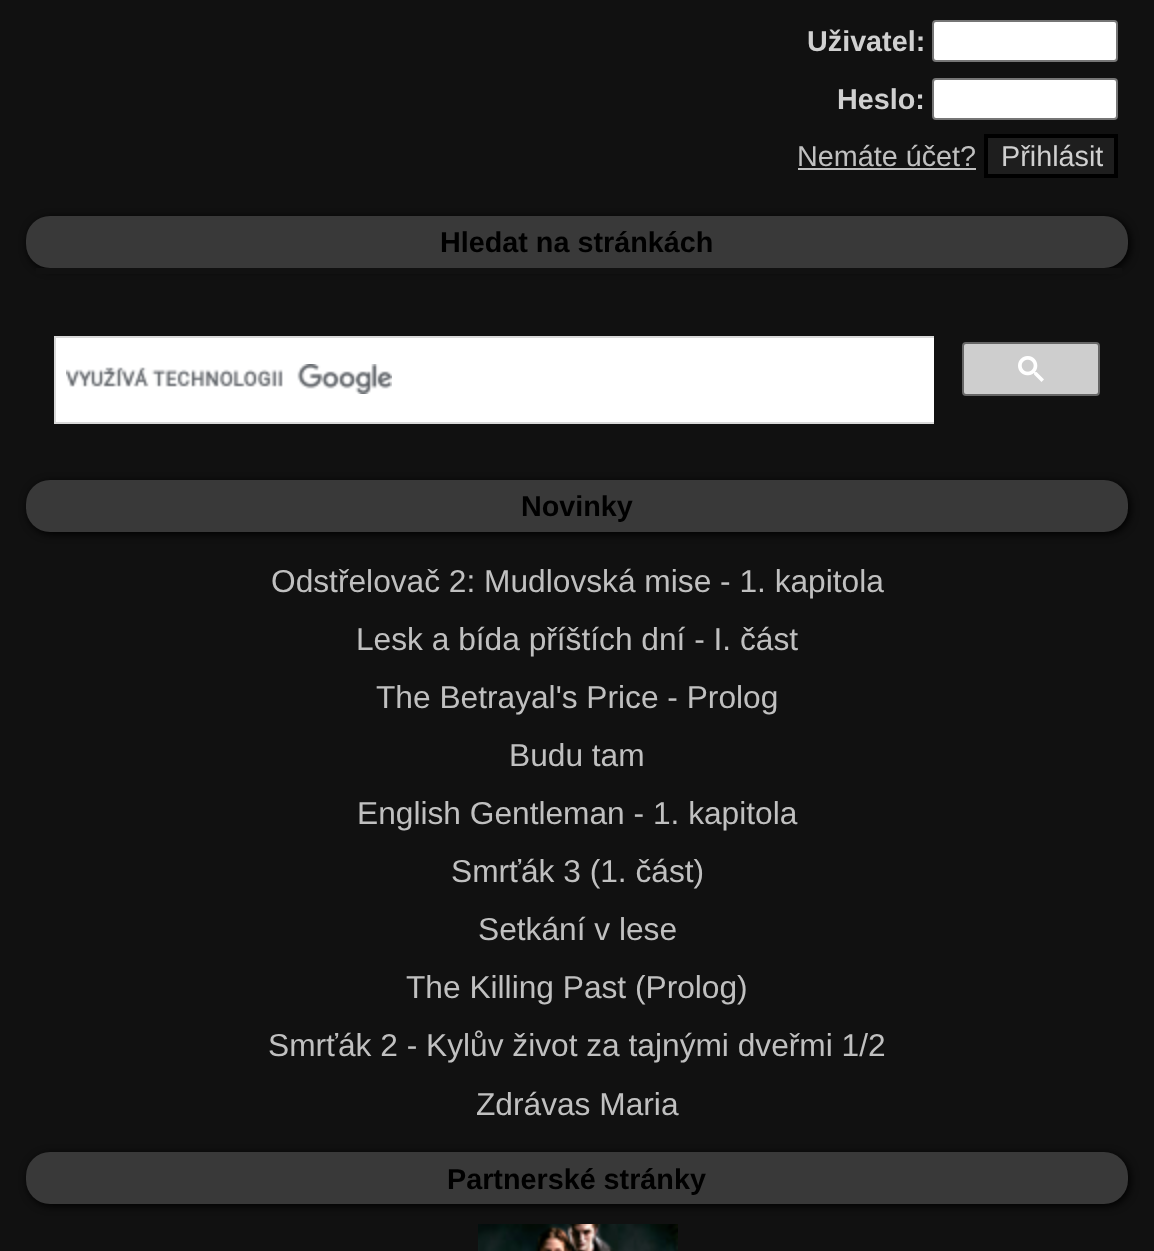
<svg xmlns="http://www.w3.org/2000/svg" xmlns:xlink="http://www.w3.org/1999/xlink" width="1154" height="1251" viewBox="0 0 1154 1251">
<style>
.cls-1{font:bold 28.75px Liberation Sans;fill:#d0d0d0}
.cls-2{font:28.75px Liberation Sans;fill:#c0c0c0}
.cls-3{font:28.75px Liberation Sans;fill:#d0d0d0}
.cls-4{font:bold 28.75px Liberation Sans;fill:#000000}
.cls-5{font:31.7px Liberation Sans;fill:#c0c0c0}
</style>
<rect width="100%" height="100%" fill="#111111"/>
<rect fill="#ffffff" stroke="#767676" stroke-width="2" x="933" y="21" width="184" height="40" rx="3"/>
<rect fill="#ffffff" stroke="#767676" stroke-width="2" x="933" y="79" width="184" height="40" rx="3"/>
<rect fill="#c0c0c0" x="798" y="168" width="178" height="2"/>
<rect fill="#1e1e1e" stroke="#000000" stroke-width="4" x="986" y="136" width="130" height="40"/>
<rect fill="#000000" filter="blur(4px)" x="28" y="218" width="1102" height="52" rx="24"/>
<rect fill="#393939" x="26" y="216" width="1102" height="52" rx="24"/>
<rect fill="#111111" x="36" y="268" width="1086" height="6"/>
<rect fill="#ffffff" x="56" y="338" width="878" height="84"/>
<rect fill="#d9d9d9" x="54" y="336" width="880" height="2"/>
<rect fill="#d9d9d9" x="54" y="422" width="880" height="2"/>
<rect fill="#d9d9d9" x="54" y="336" width="2" height="88"/>
<image xlink:href="image0.png" x="66" y="364" width="326" height="30"/>
<rect fill="#cecece" stroke="#666666" stroke-width="2" x="963" y="343" width="136" height="52" rx="3"/>
<image xlink:href="image1.png" x="1018" y="356" width="26" height="26"/>
<rect fill="#000000" filter="blur(4px)" x="28" y="482" width="1102" height="52" rx="24"/>
<rect fill="#393939" x="26" y="480" width="1102" height="52" rx="24"/>
<rect fill="#000000" filter="blur(4px)" x="28" y="1154" width="1102" height="52" rx="24"/>
<rect fill="#393939" x="26" y="1152" width="1102" height="52" rx="24"/>
<image xlink:href="image2.png" x="478" y="1224" width="200" height="27"/>
<text class="cls-1" x="807" y="51">Uživatel:</text>
<text class="cls-1" x="837" y="109">Heslo:</text>
<text class="cls-2" x="797" y="166">Nemáte účet?</text>
<text class="cls-3" x="1001" y="166">Přihlásit</text>
<text class="cls-4" x="440" y="252">Hledat na stránkách</text>
<text class="cls-4" x="521" y="516">Novinky</text>
<text class="cls-5" x="271" y="592">Odstřelovač 2: Mudlovská mise - 1. kapitola</text>
<text class="cls-5" x="356" y="650">Lesk a bída příštích dní - I. část</text>
<text class="cls-5" x="376" y="708">The Betrayal's Price - Prolog</text>
<text class="cls-5" x="509" y="766">Budu tam</text>
<text class="cls-5" x="357" y="824">English Gentleman - 1. kapitola</text>
<text class="cls-5" x="451" y="882">Smrťák 3 (1. část)</text>
<text class="cls-5" x="478" y="940">Setkání v lese</text>
<text class="cls-5" x="406" y="998">The Killing Past (Prolog)</text>
<text class="cls-5" x="268" y="1056">Smrťák 2 - Kylův život za tajnými dveřmi 1/2</text>
<text class="cls-5" x="476" y="1115">Zdrávas Maria</text>
<text class="cls-4" x="447" y="1189">Partnerské stránky</text>
</svg>
